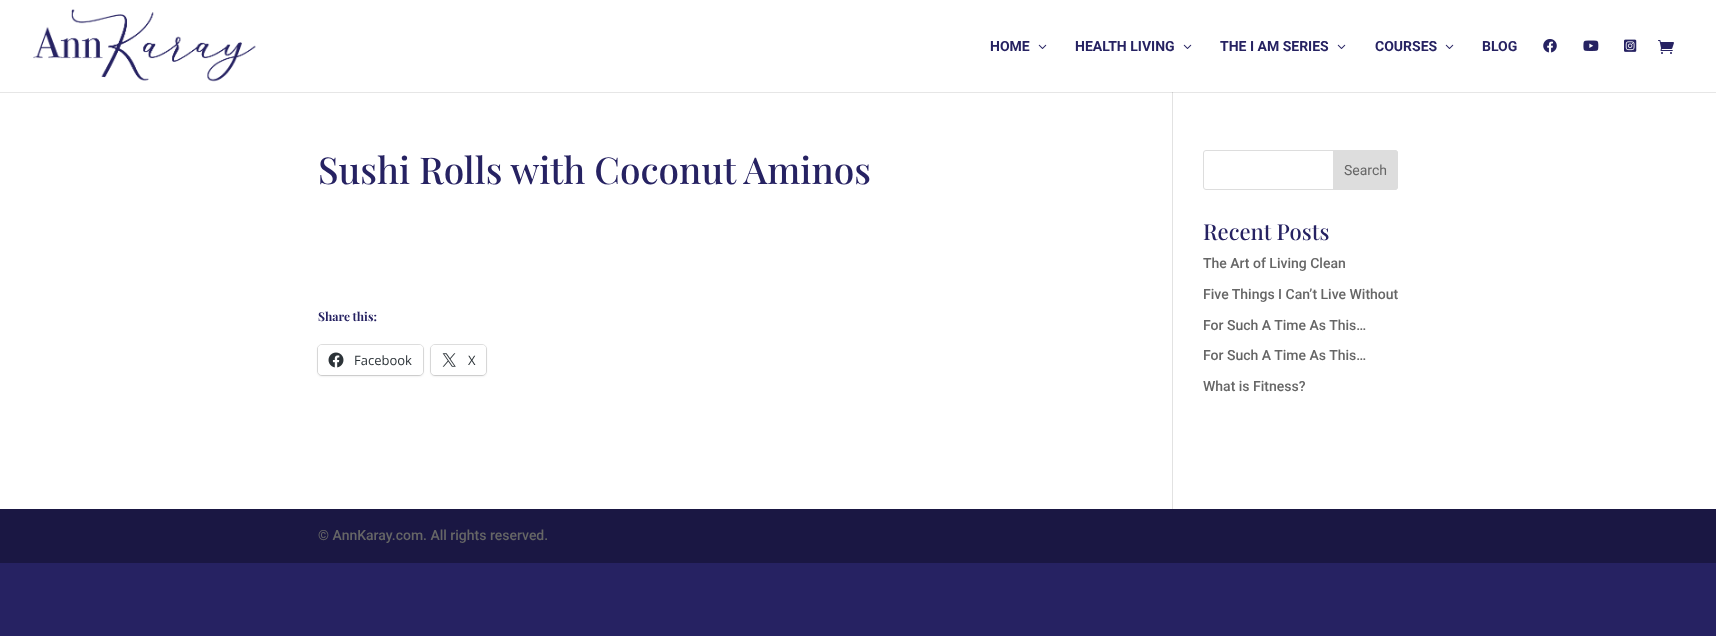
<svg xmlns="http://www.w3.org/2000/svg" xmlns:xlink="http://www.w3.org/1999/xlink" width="1716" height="636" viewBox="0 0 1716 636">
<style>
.cls-1{font:bold 14px Roboto;fill:#262262}
.cls-2{font:500 37px Playfair Display;fill:#262262}
.cls-3{font:bold 12px Playfair Display;fill:#262262}
.cls-4{font:13px Open Sans;fill:#2c3338}
.cls-5{font:14px Roboto;fill:#666666}
.cls-6{font:500 22px Playfair Display;fill:#262262}
.cls-7{font:500 14px Roboto;fill:#666666}
</style>
<rect width="100%" height="100%" fill="#262262"/>
<rect fill="#ffffff" x="0" y="0" width="1716" height="92"/>
<image xlink:href="image0.png" x="33" y="9" width="223" height="73"/>
<image xlink:href="image1.png" x="1038" y="44" width="9" height="5"/>
<image xlink:href="image1.png" x="1183" y="44" width="9" height="5"/>
<image xlink:href="image1.png" x="1337" y="44" width="9" height="5"/>
<image xlink:href="image1.png" x="1445" y="44" width="9" height="5"/>
<image xlink:href="image2.png" x="1543" y="39" width="14" height="14"/>
<image xlink:href="image3.png" x="1583" y="40" width="16" height="11"/>
<image xlink:href="image4.png" x="1624" y="39" width="13" height="13"/>
<image xlink:href="image5.png" x="1658" y="40" width="16" height="14"/>
<rect fill="#ffffff" x="0" y="93" width="1716" height="416"/>
<rect fill="#e6e6e6" x="0" y="92" width="1716" height="1"/>
<rect fill="#e2e2e2" x="1172" y="92" width="1" height="417"/>
<rect fill="#cbcbcb" x="1172" y="92" width="1" height="1"/>
<rect fill="none" stroke="#e0e0e0" x="317.5" y="344.5" width="106" height="31" rx="4.5"/>
<rect fill="#000000" fill-opacity="0.12" filter="blur(1px)" x="318" y="346" width="105" height="30" rx="4"/>
<rect fill="#ffffff" x="318" y="345" width="105" height="30" rx="4"/>
<image xlink:href="image6.png" x="328" y="352" width="16" height="16"/>
<rect fill="none" stroke="#e0e0e0" x="430.5" y="344.5" width="56" height="31" rx="4.5"/>
<rect fill="#000000" fill-opacity="0.12" filter="blur(1px)" x="431" y="346" width="55" height="30" rx="4"/>
<rect fill="#ffffff" x="431" y="345" width="55" height="30" rx="4"/>
<image xlink:href="image7.png" x="442" y="353" width="14" height="14"/>
<rect fill="none" stroke="#dddddd" x="1203.5" y="150.5" width="194" height="39" rx="2.5"/>
<path fill="#dddddd" stroke="#dddddd" d="M1333.5 150.5H1395C1396.5 150.5 1397.5 151.5 1397.5 153V187C1397.5 188.5 1396.5 189.5 1395 189.5H1333.5Z"/>
<rect fill="#1a1743" x="0" y="509" width="1716" height="54"/>
<text class="cls-1" x="990" y="51">HOME</text>
<text class="cls-1" x="1075" y="51">HEALTH LIVING</text>
<text class="cls-1" x="1220" y="51">THE I AM SERIES</text>
<text class="cls-1" x="1375" y="51">COURSES</text>
<text class="cls-1" x="1482" y="51">BLOG</text>
<text class="cls-2" x="318" y="184">Sushi Rolls with Coconut Aminos</text>
<text class="cls-3" x="318" y="321">Share this:</text>
<text class="cls-4" x="354" y="365">Facebook</text>
<text class="cls-4" x="468" y="365">X</text>
<text class="cls-5" x="1344" y="175">Search</text>
<text class="cls-6" x="1203" y="240">Recent Posts</text>
<text class="cls-7" x="1203" y="268">The Art of Living Clean</text>
<text class="cls-7" x="1203" y="299">Five Things I Can’t Live Without</text>
<text class="cls-7" x="1203" y="330">For Such A Time As This…</text>
<text class="cls-7" x="1203" y="360">For Such A Time As This…</text>
<text class="cls-7" x="1203" y="391">What is Fitness?</text>
<text class="cls-7" x="318" y="540">© AnnKaray.com. All rights reserved.</text>
</svg>
